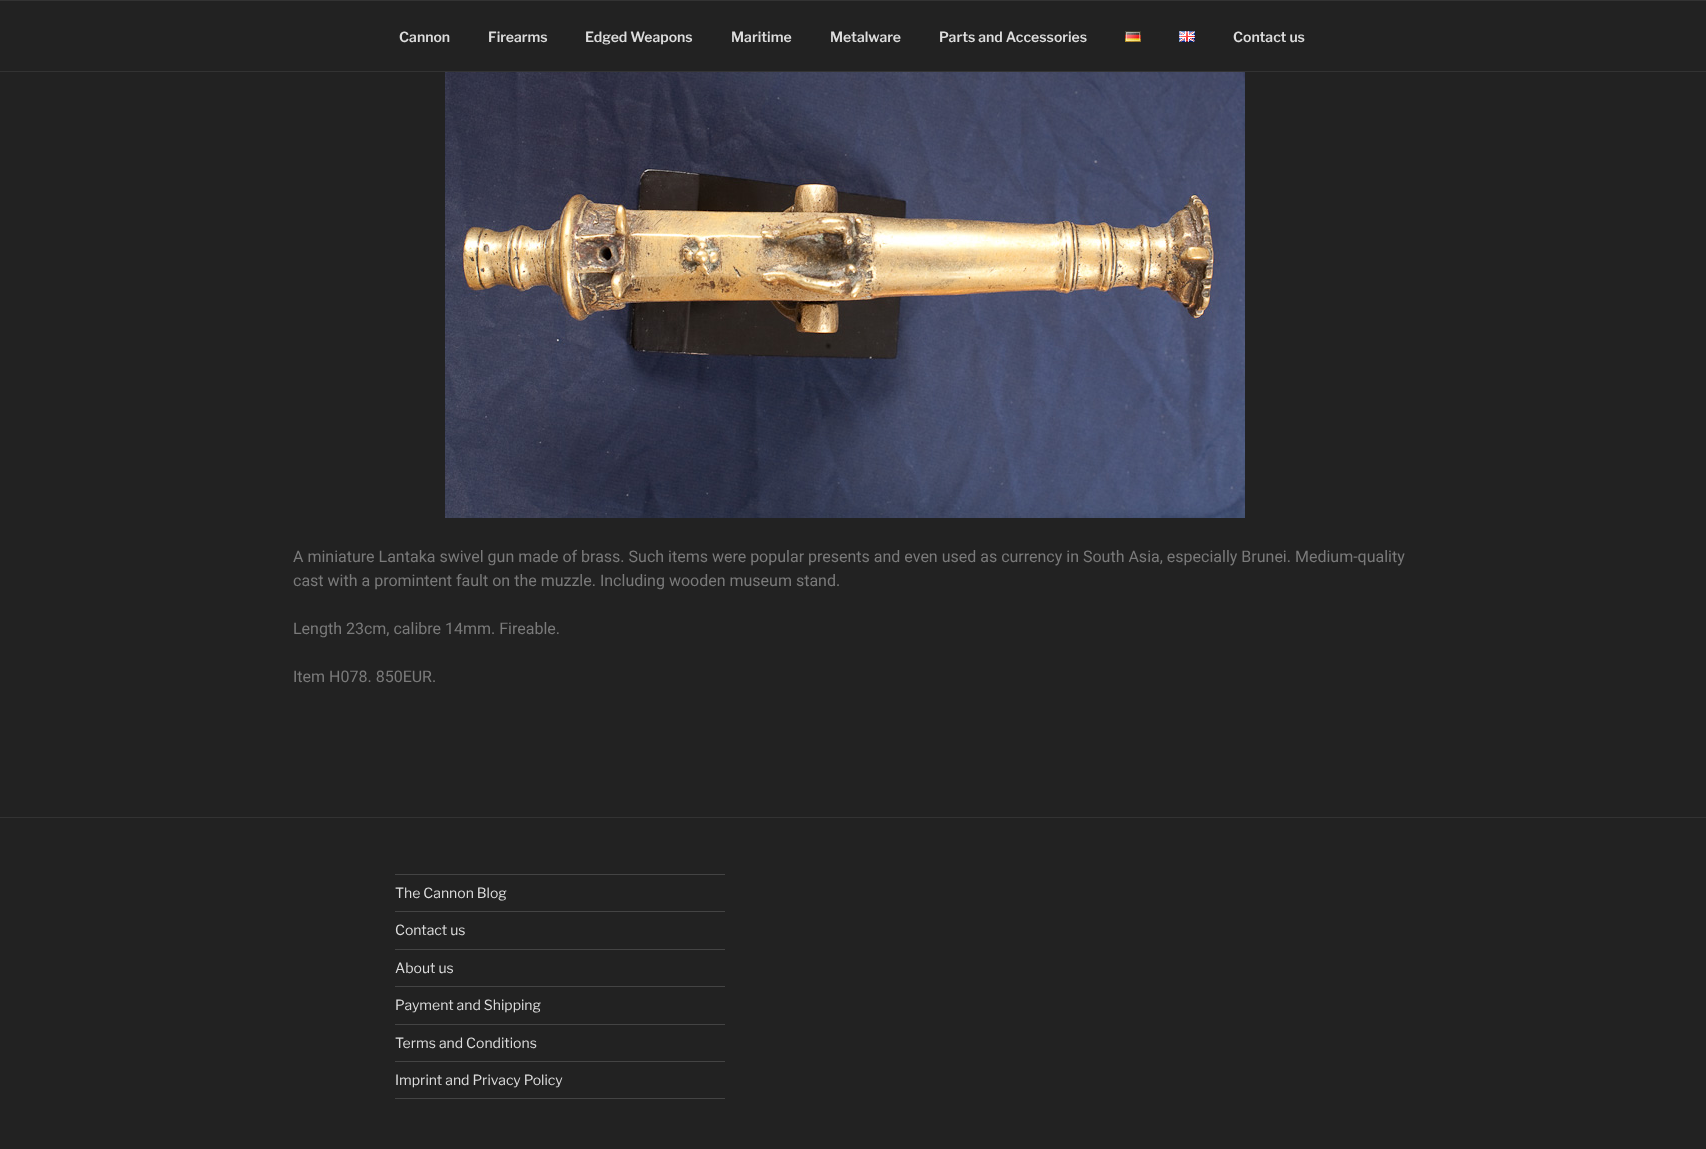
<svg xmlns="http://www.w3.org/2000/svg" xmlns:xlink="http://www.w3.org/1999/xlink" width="1706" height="1149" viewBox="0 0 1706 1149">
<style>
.cls-1{font:600 14px Libre Franklin;fill:#dddddd}
.cls-2{font:16px Roboto;fill:#7a7a7a}
.cls-3{font:14px Libre Franklin;fill:#dddddd}
</style>
<rect width="100%" height="100%" fill="#222222"/>
<rect fill="#333333" x="0" y="0" width="1706" height="1"/>
<rect fill="#333333" x="0" y="71" width="1706" height="1"/>
<image xlink:href="image0.png" x="1125" y="31" width="16" height="11"/>
<image xlink:href="image1.png" x="1179" y="31" width="16" height="11"/>
<image xlink:href="image2.png" x="445" y="72" width="800" height="446"/>
<rect fill="#333333" x="0" y="817" width="1706" height="1"/>
<rect fill="#444444" x="395" y="874" width="330" height="1"/>
<rect fill="#444444" x="395" y="911" width="330" height="1"/>
<rect fill="#444444" x="395" y="949" width="330" height="1"/>
<rect fill="#444444" x="395" y="986" width="330" height="1"/>
<rect fill="#444444" x="395" y="1024" width="330" height="1"/>
<rect fill="#444444" x="395" y="1061" width="330" height="1"/>
<rect fill="#444444" x="395" y="1098" width="330" height="1"/>
<text class="cls-1" x="399" y="42">Cannon</text>
<text class="cls-1" x="488" y="42">Firearms</text>
<text class="cls-1" x="585" y="42">Edged Weapons</text>
<text class="cls-1" x="731" y="42">Maritime</text>
<text class="cls-1" x="830" y="42">Metalware</text>
<text class="cls-1" x="939" y="42">Parts and Accessories</text>
<text class="cls-1" x="1233" y="42">Contact us</text>
<text class="cls-2"><tspan x="293" y="562">A miniature Lantaka swivel gun made of brass. Such items were popular presents and even used as currency in South Asia, especially Brunei. Medium-quality</tspan><tspan x="293" y="586">cast with a promintent fault on the muzzle. Including wooden museum stand.</tspan></text>
<text class="cls-2" x="293" y="634">Length 23cm, calibre 14mm. Fireable.</text>
<text class="cls-2" x="293" y="682">Item H078. 850EUR.</text>
<text class="cls-3" x="395" y="898">The Cannon Blog</text>
<text class="cls-3" x="395" y="935">Contact us</text>
<text class="cls-3" x="395" y="973">About us</text>
<text class="cls-3" x="395" y="1010">Payment and Shipping</text>
<text class="cls-3" x="395" y="1048">Terms and Conditions</text>
<text class="cls-3" x="395" y="1085">Imprint and Privacy Policy</text>
</svg>
